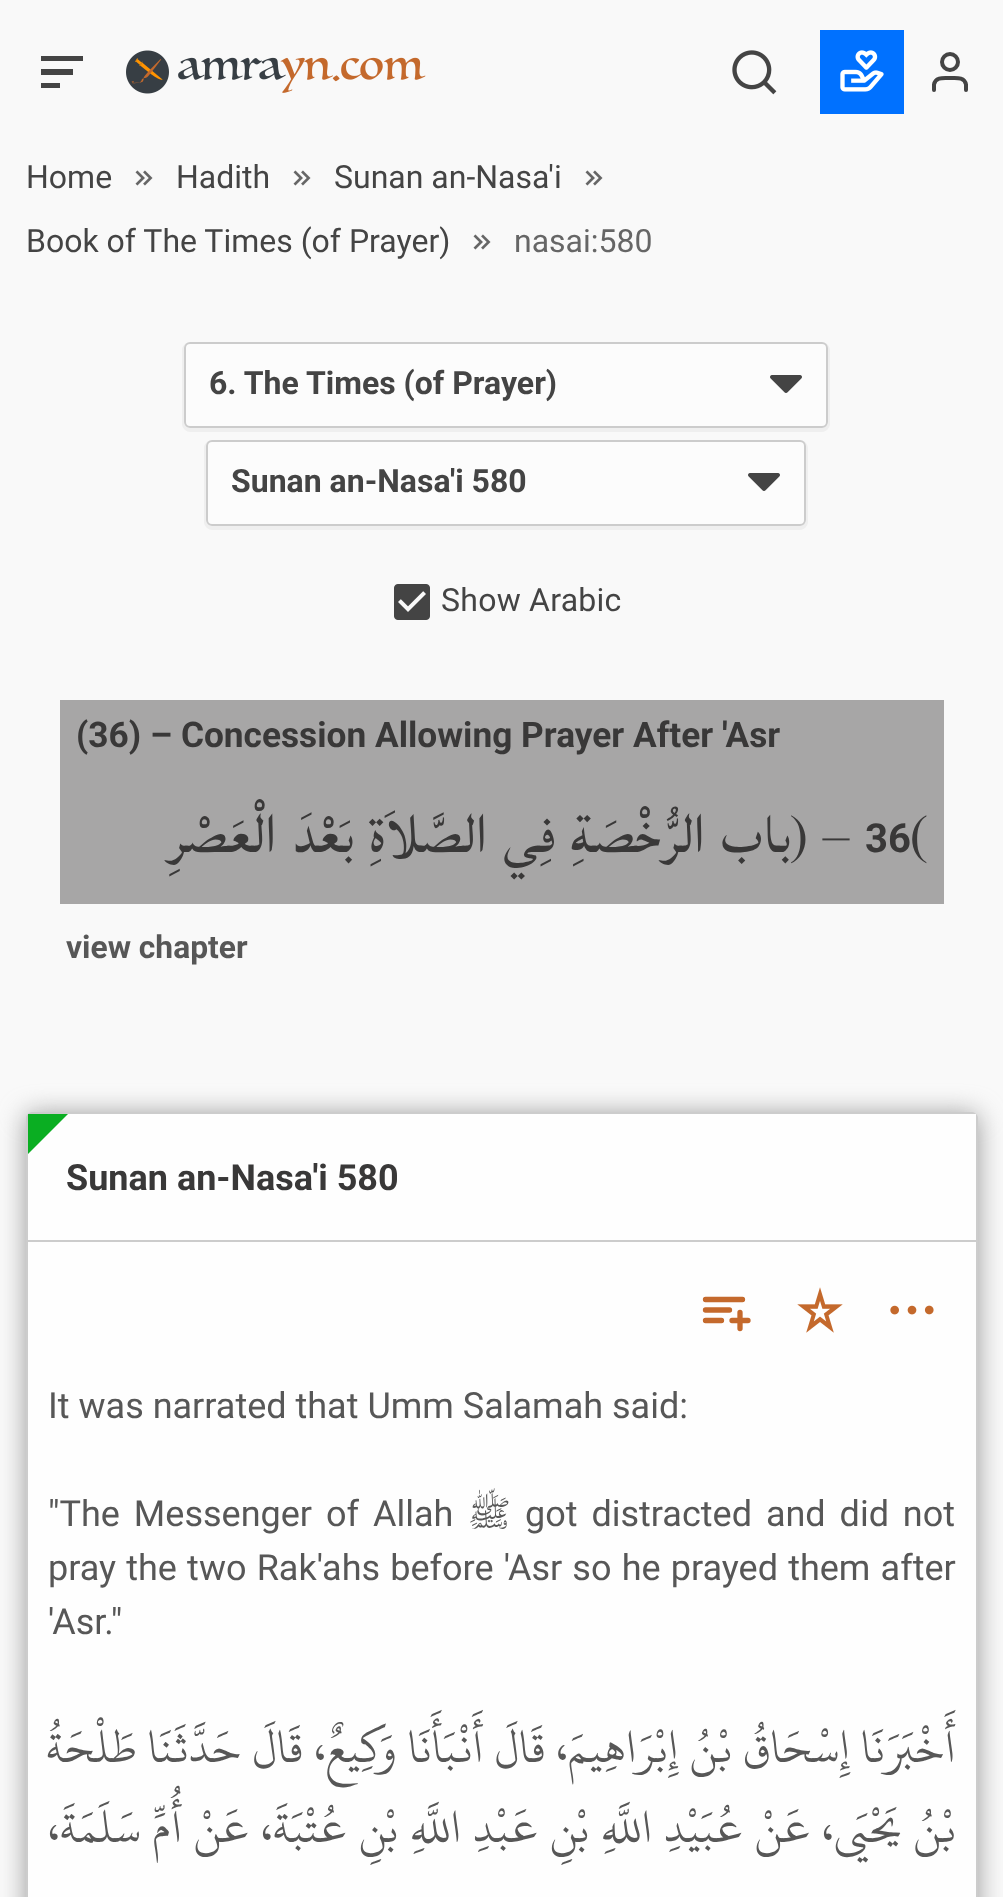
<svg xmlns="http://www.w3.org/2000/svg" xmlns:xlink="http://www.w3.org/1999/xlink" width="1003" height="1897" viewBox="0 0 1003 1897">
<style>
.cls-1{font:32px Roboto;fill:#444444}
.cls-2{font:32px Roboto;fill:#666666}
.cls-3{font:bold 32px Roboto;fill:#444444}
.cls-4{font:32px 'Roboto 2';letter-spacing:0.25px;fill:#444444}
.cls-5{font:bold 35.25px Roboto;fill:#393838}
.cls-6{font:70px Lateef;direction:rtl;fill:#393838}
.cls-7{font:70px Lateef;fill:#393838}
.cls-8{font:bold 40px Roboto;fill:#393838}
.cls-9{font:bold 31.75px Roboto;fill:#575757}
.cls-10{font:bold 36px Roboto;fill:#393838}
.cls-11{font:36px Roboto;fill:#575757}
.cls-12{font:36px 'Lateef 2';direction:rtl;fill:#575757}
.cls-13{font:50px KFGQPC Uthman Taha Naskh;direction:rtl;fill:#575757}
</style>
<rect width="100%" height="100%" fill="#f9f9f9"/>
<path fill="#444444" d="M41 69H73V75H41ZM41 56H83V61H41ZM41 88H60V83H41Z"/>
<image xlink:href="image0.png" x="126" y="50" width="300" height="44"/>
<image xlink:href="image1.png" x="732" y="50" width="45" height="45"/>
<rect fill="#0071ff" x="820" y="30" width="84" height="84"/>
<image xlink:href="image2.png" x="840" y="50" width="44" height="42"/>
<path fill="none" stroke="#444444" stroke-width="4" stroke-linecap="round" stroke-linejoin="round" d="M966 90V84.5C964.5 76.5 956 78 950 78C944 78 935.5 76.5 934 84.5V90"/>
<circle fill="none" stroke="#444444" stroke-width="4" cx="950" cy="62" r="8"/>
<image xlink:href="image3.png" x="135" y="170" width="18" height="16"/>
<image xlink:href="image3.png" x="293" y="170" width="18" height="16"/>
<image xlink:href="image3.png" x="585" y="170" width="18" height="16"/>
<image xlink:href="image3.png" x="473" y="234" width="18" height="16"/>
<path fill="#efefef" d="M190 342C186 342 182 346 182 350V424C182 428 186 432 190 432H822C826 432 830 428 830 424V350C830 346 826 342 822 342C825 342 828 345 828 348V422C828 425 825 428 822 428H190C187 428 184 425 184 422V348C184 345 187 342 190 342Z"/>
<rect fill="#fcfcfc" x="184" y="342" width="644" height="86" rx="6"/>
<image xlink:href="image4.png" x="770" y="375" width="32" height="18"/>
<rect fill="none" stroke="#cccccc" stroke-width="2" x="185" y="343" width="642" height="84" rx="5"/>
<path fill="#efefef" d="M212 440C208 440 204 444 204 448V522C204 526 208 530 212 530H800C804 530 808 526 808 522V448C808 444 804 440 800 440C803 440 806 443 806 446V520C806 523 803 526 800 526H212C209 526 206 523 206 520V446C206 443 209 440 212 440Z"/>
<rect fill="#fcfcfc" x="206" y="440" width="600" height="86" rx="6"/>
<image xlink:href="image4.png" x="748" y="473" width="32" height="18"/>
<rect fill="none" stroke="#cccccc" stroke-width="2" x="207" y="441" width="598" height="84" rx="5"/>
<image xlink:href="image5.png" x="394" y="584" width="36" height="36"/>
<rect fill="#a7a6a6" x="60" y="700" width="884" height="204"/>
<rect fill="#999999" filter="blur(13px)" x="26" y="1114" width="952" height="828" rx="6"/>
<path fill="#fefefe" d="M32 1114H972C974 1114 976 1116 976 1118V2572H28V1118C28 1116 30 1114 32 1114Z"/>
<path fill="#cccccc" d="M32 1112C30 1112 29 1113 28 1114L29 1115L32 1114H972L975 1115L976 1114C975 1113 974 1112 972 1112Z"/>
<path fill="#cccccc" d="M978 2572V1118C978 1116 977 1115 976 1114L975 1115C976 1116 976 1117 976 1118V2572L977 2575Z"/>
<path fill="#cccccc" d="M26 1118V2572L27 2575L28 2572V1118C28 1117 28 1116 29 1115L28 1114C27 1115 26 1116 26 1118Z"/>
<rect fill="#fefefe" x="28" y="1114" width="948" height="4"/>
<rect fill="#cccccc" x="28" y="1240" width="948" height="2"/>
<path fill="#0aae22" d="M28 1114H68L28 1154Z"/>
<path fill="none" stroke="#c4692c" stroke-width="5.3" stroke-linecap="round" stroke-linejoin="round" d="M742.5 1299.5H705.5M705.5 1310H729.5M721.5 1320.5H705.5M732 1320.5H748M740 1312.5V1328.5"/>
<image xlink:href="image6.png" x="797" y="1287" width="46" height="46"/>
<image xlink:href="image7.png" x="890" y="1305" width="44" height="10"/>
<text class="cls-1" x="26" y="188">Home</text>
<text class="cls-1" x="176" y="188">Hadith</text>
<text class="cls-1" x="334" y="188">Sunan an-Nasa'i</text>
<text class="cls-1" x="26" y="252">Book of The Times (of Prayer)</text>
<text class="cls-2" x="514" y="252">nasai:580</text>
<text class="cls-3" x="209" y="394">6. The Times (of Prayer)</text>
<text class="cls-3" x="231" y="492">Sunan an-Nasa'i 580</text>
<text class="cls-4" x="441" y="611">Show Arabic</text>
<text class="cls-5" x="76" y="747">(36) – Concession Allowing Prayer After 'Asr</text>
<text class="cls-6" x="790" y="852">باب الرُّخْصَةِ فِي الصَّلاَةِ بَعْدَ الْعَصْرِ</text>
<text class="cls-7" x="790" y="852">) –</text>
<text class="cls-8" x="865" y="852">36</text>
<text class="cls-7" x="910" y="852">(</text>
<text class="cls-9" x="66" y="958">view chapter</text>
<text class="cls-10" x="66" y="1190">Sunan an-Nasa'i 580</text>
<text class="cls-11" x="48" y="1418">It was narrated that Umm Salamah said:</text>
<text class="cls-11" x="48" y="1526" word-spacing="5">"The Messenger of Allah</text>
<text class="cls-12" x="511" y="1526">ﷺ</text>
<text class="cls-11" x="525" y="1526" word-spacing="5">got distracted and did not</text>
<text class="cls-11"><tspan x="48" y="1580" word-spacing="1.25">pray the two Rak'ahs before 'Asr so he prayed them after</tspan><tspan x="48" y="1634">'Asr."</tspan></text>
<text class="cls-13"><tspan x="956" y="1762" word-spacing="1.25">أَخْبَرَنَا إِسْحَاقُ بْنُ إِبْرَاهِيمَ، قَالَ أَنْبَأَنَا وَكِيعٌ، قَالَ حَدَّثَنَا طَلْحَةُ</tspan><tspan x="956" y="1842" word-spacing="1.8">بْنُ يَحْيَى، عَنْ عُبَيْدِ اللَّهِ بْنِ عَبْدِ اللَّهِ بْنِ عُتْبَةَ، عَنْ أُمِّ سَلَمَةَ،</tspan></text>
</svg>
